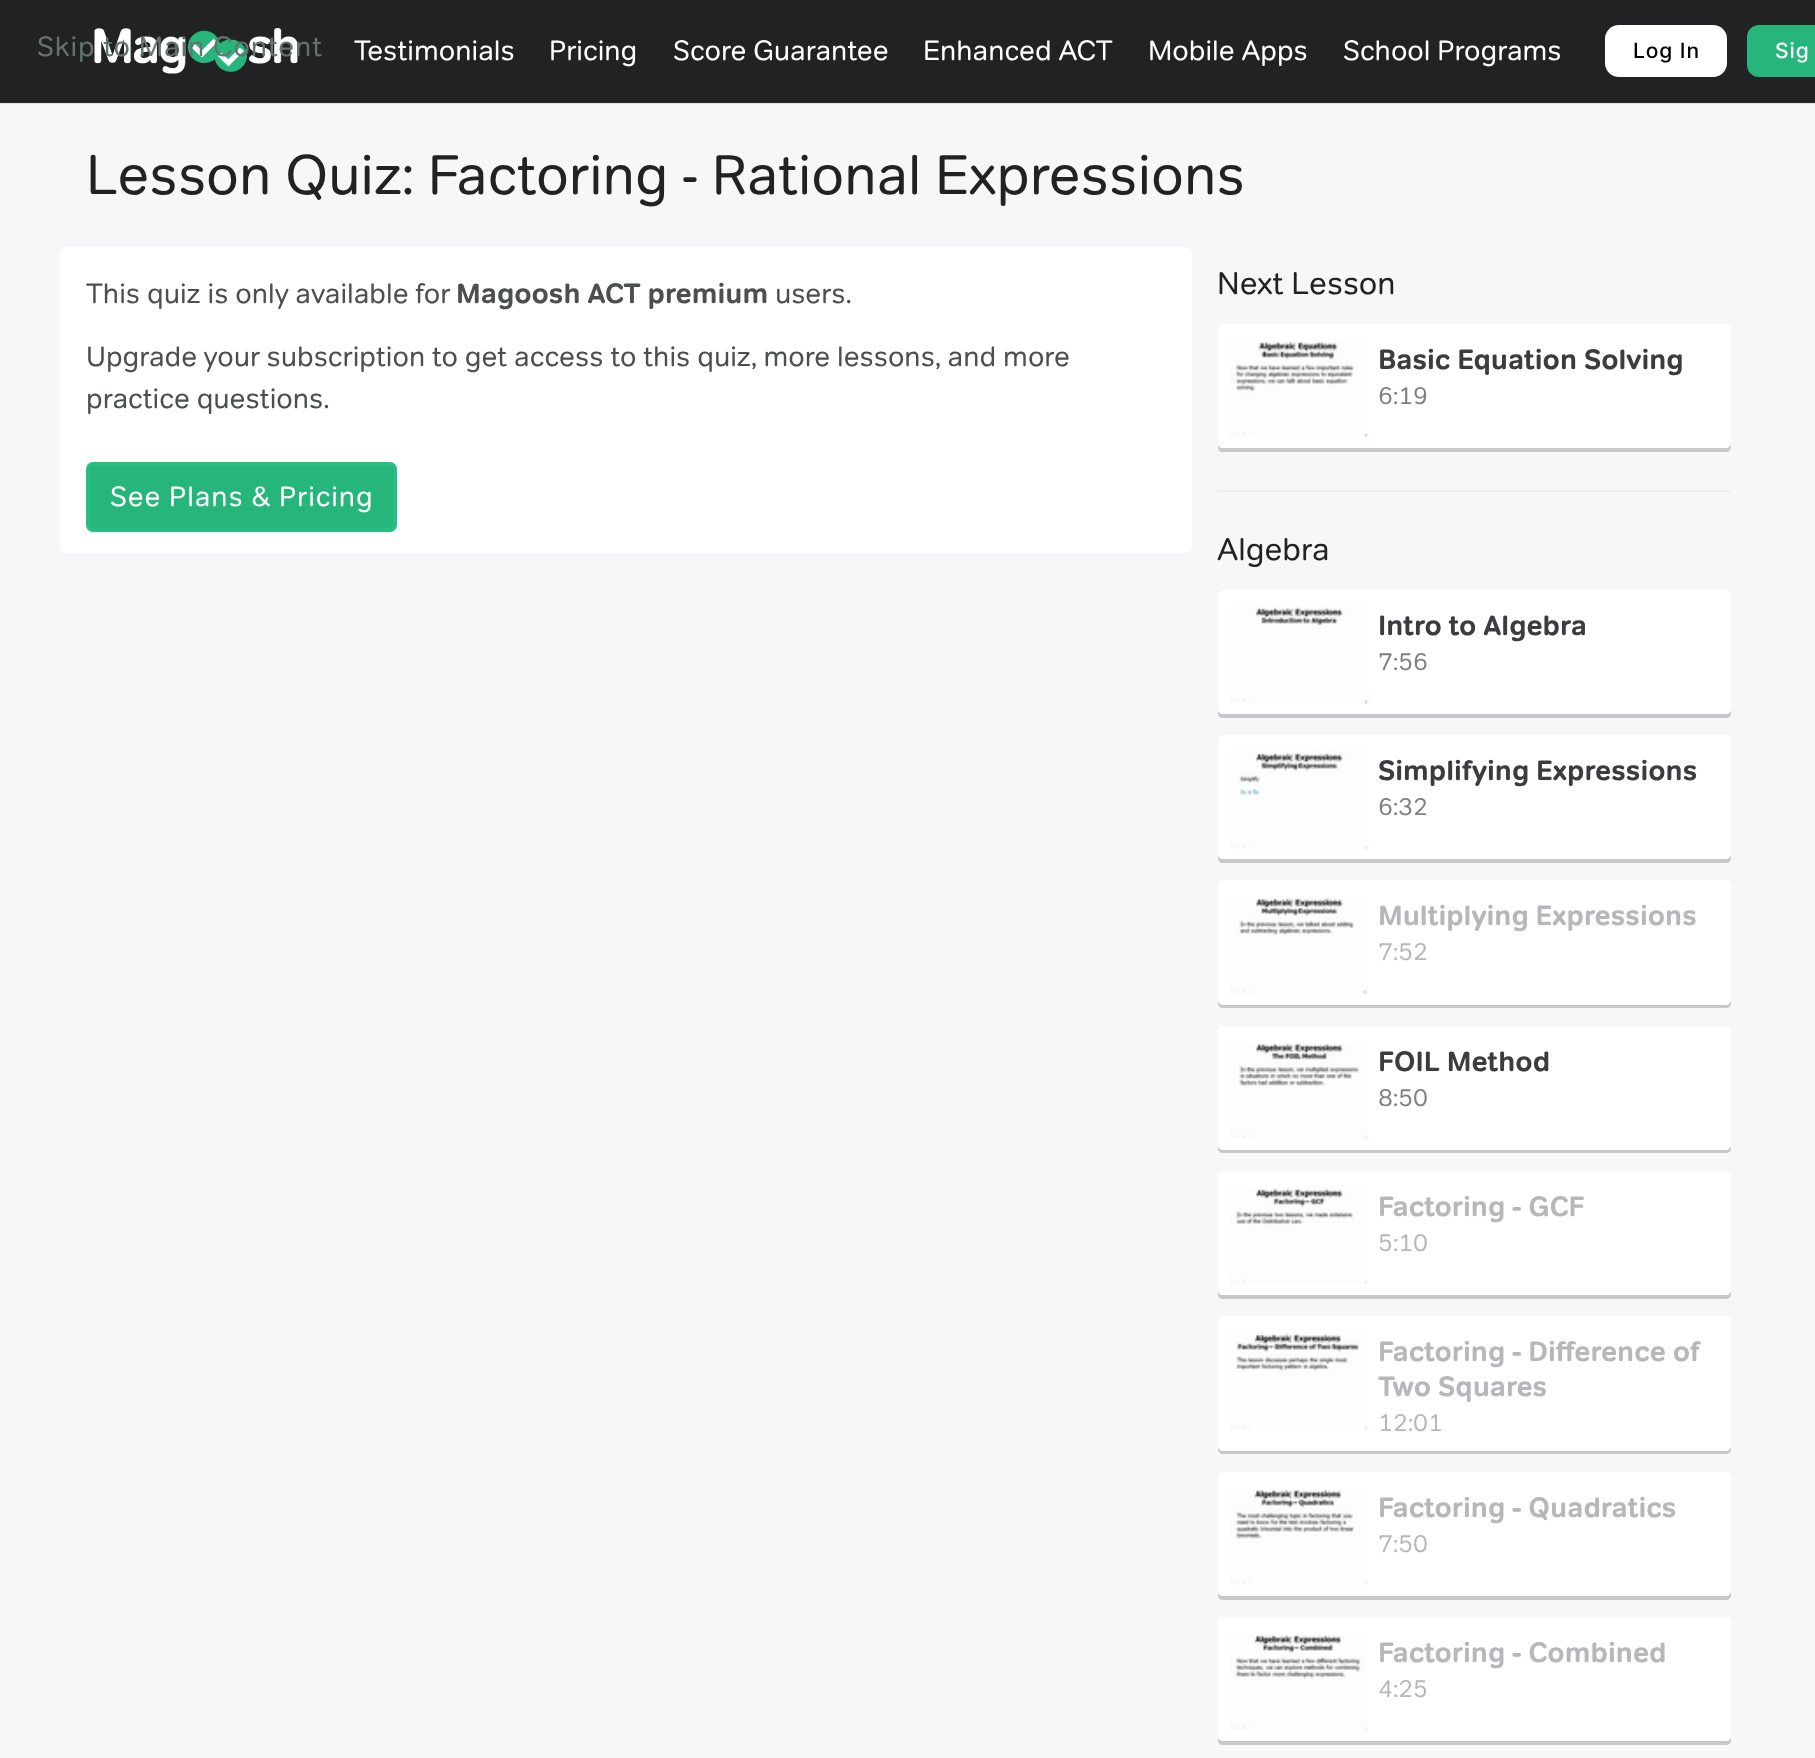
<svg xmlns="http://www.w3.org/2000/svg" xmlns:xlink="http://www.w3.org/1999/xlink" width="1815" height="1758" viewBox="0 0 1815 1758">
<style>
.cls-1{font:28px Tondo;letter-spacing:0.9px;fill:#63746e}
.cls-2{font:28px Tondo;fill:#ffffff}
.cls-3{font:500 21px Inter;letter-spacing:0.9px;fill:#000000}
.cls-4{font:500 21px Inter;letter-spacing:0.9px;fill:#ffffff}
.cls-5{font:56px Tondo;fill:#222123}
.cls-6{font:28px Tondo;fill:#4b504e}
.cls-7{font:bold 28px Tondo;fill:#4b504e}
.cls-8{font:28px Tondo;letter-spacing:0.9px;fill:#ffffff}
.cls-9{font:31.5px Tondo;fill:#222123}
.cls-10{font:bold 28px Tondo;fill:#3d3b3f}
.cls-11{font:24.5px Tondo;fill:#817e85}
.cls-12{font:bold 28px Tondo;fill:#b8b6ba}
.cls-13{font:24.5px Tondo;fill:#b8b6ba}
</style>
<rect width="100%" height="100%" fill="#f7f7f9"/>
<rect fill="#e0e0e1" x="0" y="103" width="1815" height="1"/>
<rect fill="#222123" x="0" y="0" width="1815" height="102"/>
<rect fill="#2b2a2c" x="0" y="102" width="1815" height="1"/>
<image xlink:href="image0.png" x="94" y="28" width="204" height="46"/>
<rect fill="#ffffff" x="1605" y="25" width="122" height="52" rx="14"/>
<rect fill="#26b67c" x="1747" y="25" width="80" height="52" rx="12"/>
<rect fill="#ffffff" x="60" y="247" width="1132" height="306" rx="7"/>
<rect fill="#26b67c" stroke="#27be82" stroke-width="4" x="88" y="464" width="307" height="66" rx="5"/>
<path fill="#c8c7ca" d="M1218 443V447C1218 450 1220 452 1223 452H1726C1729 452 1731 450 1731 447V330V443C1731 446 1728 448 1726 448H1223C1220 448 1218 446 1218 443Z"/>
<rect fill="#ffffff" x="1218" y="324" width="513" height="124" rx="5"/>
<image xlink:href="image1.png" x="1230" y="341" width="139" height="97"/>
<rect fill="#eeeeef" x="1218" y="490" width="513" height="2"/>
<path fill="#c8c7ca" d="M1218 709V713C1218 716 1220 718 1223 718H1726C1729 718 1731 716 1731 713V596V709C1731 712 1728 714 1726 714H1223C1220 714 1218 712 1218 709Z"/>
<rect fill="#ffffff" x="1218" y="590" width="513" height="124" rx="5"/>
<image xlink:href="image2.png" x="1230" y="606" width="139" height="98"/>
<path fill="#c8c7ca" d="M1218 854V858C1218 861 1220 863 1223 863H1726C1729 863 1731 861 1731 858V742V854C1731 857 1728 859 1726 859H1223C1220 859 1218 857 1218 854Z"/>
<rect fill="#ffffff" x="1218" y="735" width="513" height="124" rx="5"/>
<image xlink:href="image3.png" x="1230" y="751" width="139" height="98"/>
<path fill="#c8c7ca" d="M1218 999V1003C1218 1006 1220 1008 1223 1008H1726C1729 1008 1731 1006 1731 1003V887V999C1731 1002 1728 1004 1726 1004H1223C1220 1004 1218 1002 1218 999Z"/>
<rect fill="#ffffff" x="1218" y="880" width="513" height="125" rx="5"/>
<image xlink:href="image4.png" x="1230" y="897" width="138" height="97"/>
<path fill="#c8c7ca" d="M1218 1144V1148C1218 1151 1220 1153 1223 1153H1726C1729 1153 1731 1151 1731 1148V1032V1144C1731 1147 1728 1150 1726 1150H1223C1220 1150 1218 1147 1218 1144Z"/>
<rect fill="#ffffff" x="1218" y="1026" width="513" height="124" rx="5"/>
<image xlink:href="image5.png" x="1230" y="1043" width="139" height="97"/>
<path fill="#c8c7ca" d="M1218 1290V1294C1218 1297 1220 1299 1223 1299H1726C1729 1299 1731 1297 1731 1294V1177V1290C1731 1293 1728 1295 1726 1295H1223C1220 1295 1218 1293 1218 1290Z"/>
<rect fill="#ffffff" x="1218" y="1171" width="513" height="124" rx="5"/>
<image xlink:href="image6.png" x="1230" y="1187" width="138" height="98"/>
<path fill="#c8c7ca" d="M1218 1446V1449C1218 1452 1220 1454 1223 1454H1726C1729 1454 1731 1452 1731 1449V1323V1446C1731 1448 1728 1451 1726 1451H1223C1220 1451 1218 1448 1218 1446Z"/>
<rect fill="#ffffff" x="1218" y="1316" width="513" height="135" rx="5"/>
<image xlink:href="image7.png" x="1230" y="1333" width="139" height="97"/>
<path fill="#c8c7ca" d="M1218 1591V1595C1218 1598 1220 1600 1223 1600H1726C1729 1600 1731 1598 1731 1595V1478V1591C1731 1594 1728 1596 1726 1596H1223C1220 1596 1218 1594 1218 1591Z"/>
<rect fill="#ffffff" x="1218" y="1472" width="513" height="124" rx="5"/>
<image xlink:href="image8.png" x="1230" y="1489" width="138" height="96"/>
<path fill="#c8c7ca" d="M1218 1736V1740C1218 1743 1220 1745 1223 1745H1726C1729 1745 1731 1743 1731 1740V1624V1736C1731 1739 1728 1741 1726 1741H1223C1220 1741 1218 1739 1218 1736Z"/>
<rect fill="#ffffff" x="1218" y="1617" width="513" height="124" rx="5"/>
<image xlink:href="image9.png" x="1230" y="1634" width="139" height="97"/>
<text class="cls-1" x="37" y="56">Skip to Main Content</text>
<text class="cls-2" x="354" y="60">Testimonials</text>
<text class="cls-2" x="549" y="60">Pricing</text>
<text class="cls-2" x="673" y="60">Score Guarantee</text>
<text class="cls-2" x="923" y="60">Enhanced ACT</text>
<text class="cls-2" x="1148" y="60">Mobile Apps</text>
<text class="cls-2" x="1343" y="60">School Programs</text>
<text class="cls-3" x="1633" y="58">Log In</text>
<text class="cls-4" x="1775" y="58">Sig</text>
<text class="cls-5" x="86" y="194">Lesson Quiz: Factoring - Rational Expressions</text>
<text class="cls-6" x="86" y="303">This quiz is only available for</text>
<text class="cls-7" x="456" y="303">Magoosh ACT premium</text>
<text class="cls-6" x="775" y="303">users.</text>
<text class="cls-6"><tspan x="86" y="366">Upgrade your subscription to get access to this quiz, more lessons, and more</tspan><tspan x="86" y="408">practice questions.</tspan></text>
<text class="cls-8" x="110" y="506">See Plans &amp; Pricing</text>
<text class="cls-9" x="1217" y="294">Next Lesson</text>
<text class="cls-10" x="1378" y="369">Basic Equation Solving</text>
<text class="cls-11" x="1378" y="404">6:19</text>
<text class="cls-9" x="1217" y="560">Algebra</text>
<text class="cls-10" x="1378" y="635">Intro to Algebra</text>
<text class="cls-11" x="1378" y="670">7:56</text>
<text class="cls-10" x="1378" y="780">Simplifying Expressions</text>
<text class="cls-11" x="1378" y="815">6:32</text>
<text class="cls-12" x="1378" y="925">Multiplying Expressions</text>
<text class="cls-13" x="1378" y="960">7:52</text>
<text class="cls-10" x="1378" y="1071">FOIL Method</text>
<text class="cls-11" x="1378" y="1106">8:50</text>
<text class="cls-12" x="1378" y="1216">Factoring - GCF</text>
<text class="cls-13" x="1378" y="1251">5:10</text>
<text class="cls-12"><tspan x="1378" y="1361">Factoring - Difference of</tspan><tspan x="1378" y="1396">Two Squares</tspan></text>
<text class="cls-13" x="1378" y="1431">12:01</text>
<text class="cls-12" x="1378" y="1517">Factoring - Quadratics</text>
<text class="cls-13" x="1378" y="1552">7:50</text>
<text class="cls-12" x="1378" y="1662">Factoring - Combined</text>
<text class="cls-13" x="1378" y="1697">4:25</text>
</svg>
